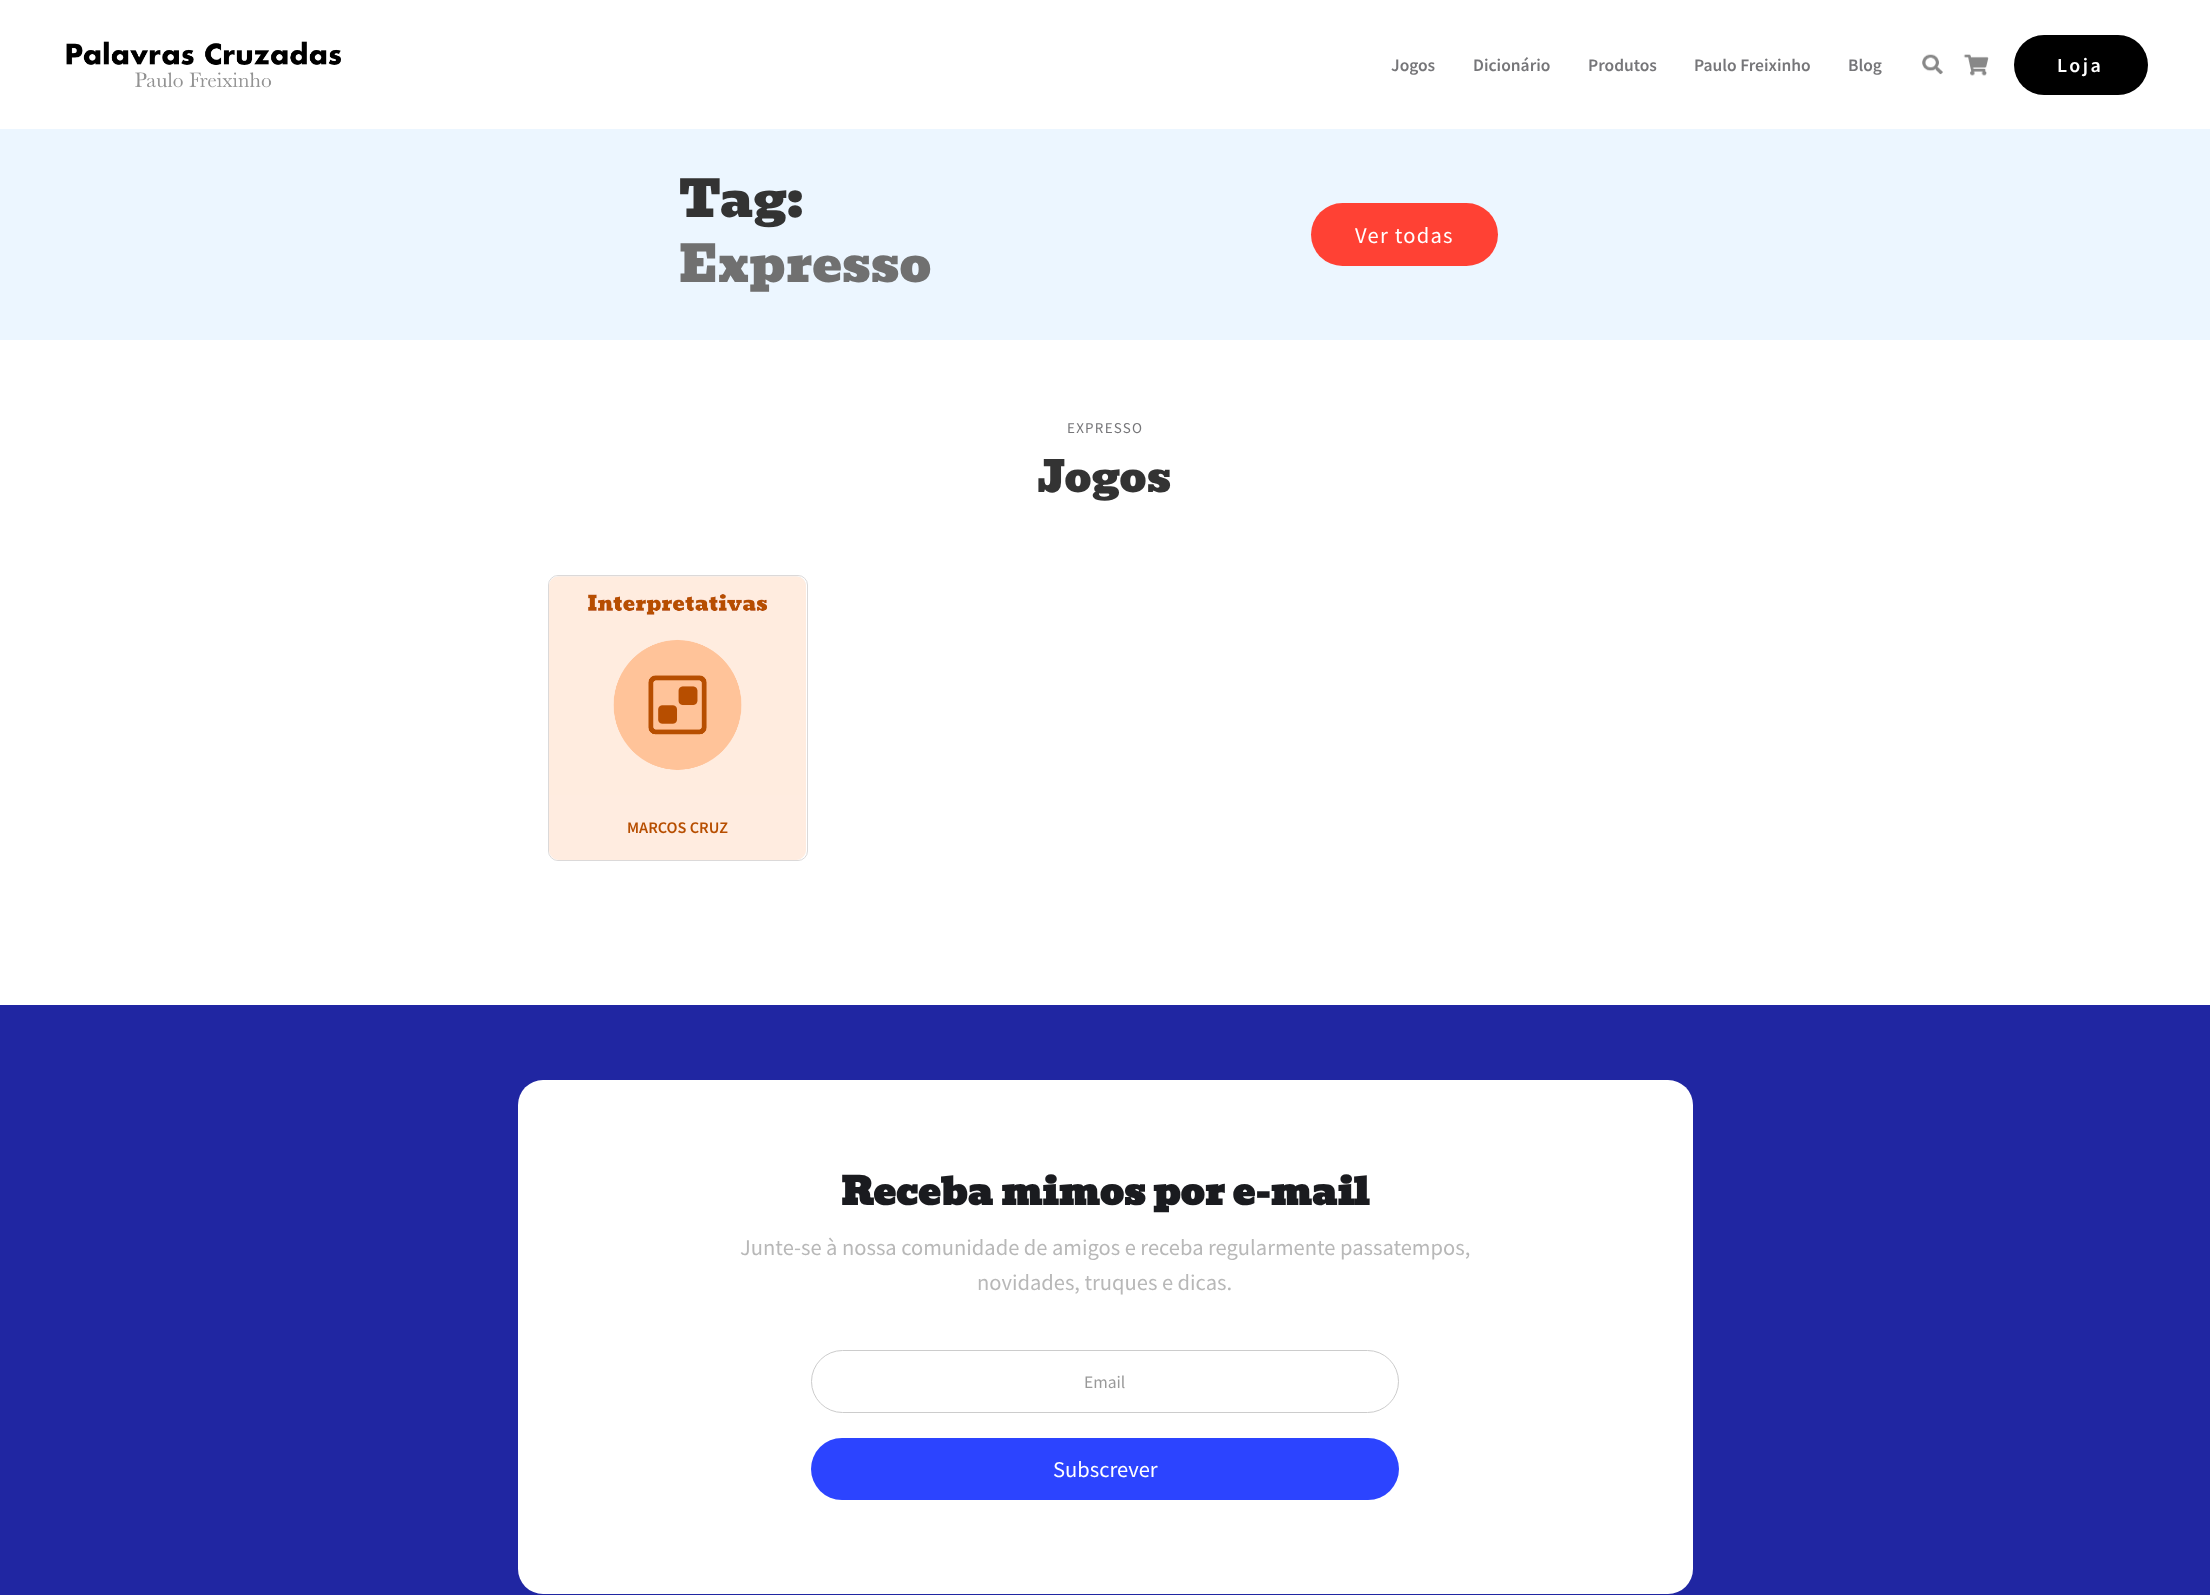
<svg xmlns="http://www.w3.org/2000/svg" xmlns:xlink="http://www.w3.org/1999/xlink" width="2210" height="1595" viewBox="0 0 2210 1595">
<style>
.cls-1{font:600 17.5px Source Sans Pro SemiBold;fill:#767679}
.cls-2{font:600 20px Source Sans Pro SemiBold;letter-spacing:2.5px;fill:#ffffff}
.cls-3{font:50px Bevan;fill:#333333}
.cls-4{font:50px Bevan;fill:#707070}
.cls-5{font:22.5px Source Sans Pro;letter-spacing:1.25px;fill:#ffffff}
.cls-6{font:15px Source Sans Pro;letter-spacing:1.25px;fill:#767679}
.cls-7{font:42.5px Bevan;fill:#333333}
.cls-8{font:600 16.25px Source Sans Pro SemiBold;fill:#b74e00}
.cls-9{font:bold 37.5px Bevan;fill:#1a1b1f}
.cls-10{font:22.5px Source Sans Pro;fill:#b8b8b8}
.cls-11{font:17.5px Source Sans Pro;fill:#999999}
.cls-12{font:22.5px Source Sans Pro;fill:#ffffff}
</style>
<rect width="100%" height="100%" fill="#ffffff"/>
<image xlink:href="image0.png" x="66" y="41" width="275" height="47"/>
<image xlink:href="image1.png" x="1922" y="54" width="21" height="21"/>
<image xlink:href="image2.png" x="1963" y="54" width="26" height="22"/>
<rect fill="#000000" x="2014" y="35" width="134" height="60" rx="30"/>
<rect fill="#ecf6ff" x="0" y="129" width="2210" height="211"/>
<rect fill="#ff4134" x="1311" y="203" width="187" height="63" rx="31.5"/>
<rect fill="none" stroke="#dbd9d9" x="548.5" y="575.5" width="259" height="285" rx="9.5"/>
<path fill="#f2f2f2" d="M559 576H796C801.5 576 806 580.5 806 586V795H549V586C549 580.5 553.5 576 559 576Z"/>
<image xlink:href="image3.png" x="549" y="576" width="257" height="219"/>
<path fill="#ffece0" d="M549 795H806V850C806 855.5 801.5 860 796 860H559C553.5 860 549 855.5 549 850Z"/>
<rect fill="#2026a2" x="0" y="1005" width="2210" height="590"/>
<rect fill="#ffffff" x="518" y="1080" width="1175" height="514" rx="25"/>
<rect fill="none" stroke="#cccccc" x="811.5" y="1350.5" width="587" height="62" rx="31"/>
<rect fill="#2c44ff" x="811" y="1438" width="588" height="62" rx="31"/>
<text class="cls-1" x="1391" y="71">Jogos</text>
<text class="cls-1" x="1473" y="71">Dicionário</text>
<text class="cls-1" x="1588" y="71">Produtos</text>
<text class="cls-1" x="1694" y="71">Paulo Freixinho</text>
<text class="cls-1" x="1848" y="71">Blog</text>
<text class="cls-2" x="2057" y="72">Loja</text>
<text class="cls-3" x="679" y="217">Tag:</text>
<text class="cls-4" x="679" y="282">Expresso</text>
<text class="cls-5" x="1355" y="243">Ver todas</text>
<text class="cls-6" x="1067" y="433">EXPRESSO</text>
<text class="cls-7" x="1038" y="492">Jogos</text>
<text class="cls-8" x="627" y="833">MARCOS CRUZ</text>
<text class="cls-9" x="841" y="1205">Receba mimos por e-mail</text>
<text class="cls-10" x="740" y="1255">Junte-se à nossa comunidade de amigos e receba regularmente passatempos,</text>
<text class="cls-10" x="977" y="1290">novidades, truques e dicas.</text>
<text class="cls-11" x="1084" y="1388">Email</text>
<text class="cls-12" x="1053" y="1477">Subscrever</text>
</svg>
